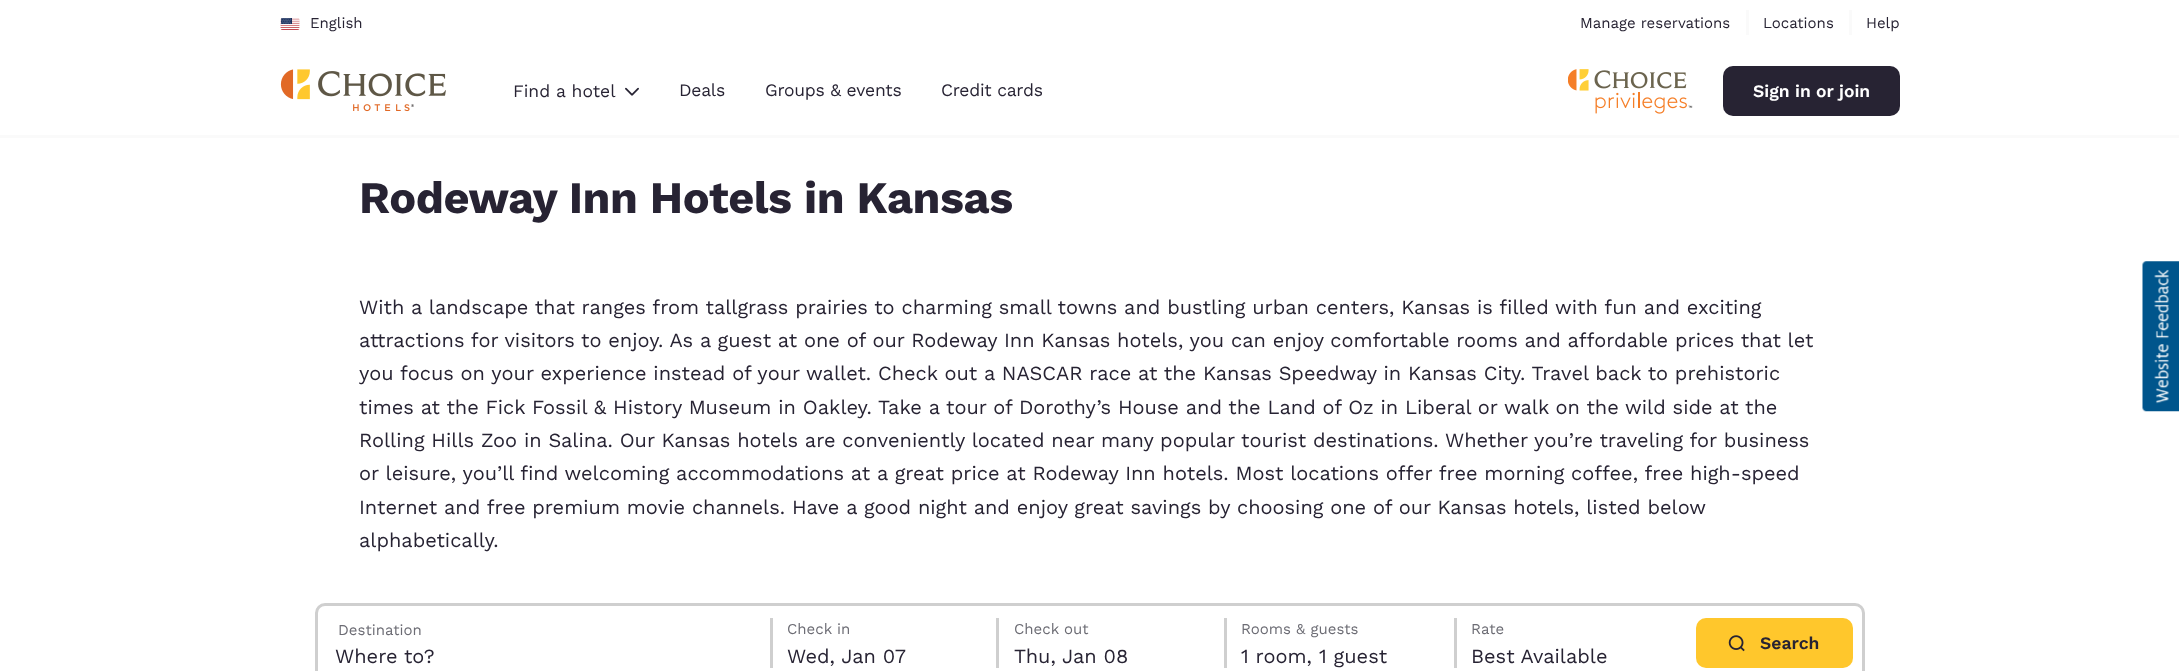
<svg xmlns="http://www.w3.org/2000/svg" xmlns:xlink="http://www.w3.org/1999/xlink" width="2179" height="671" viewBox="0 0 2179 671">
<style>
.cls-1{font:15px Work Sans;fill:#272333}
.cls-2{font:17.5px Work Sans;fill:#272333}
.cls-3{font:17.5px Work Sans;letter-spacing:-0.25px;fill:#272333}
.cls-4{font:600 17.5px Work Sans;fill:#ffffff}
.cls-5{font:bold 45px Work Sans;letter-spacing:-0.45px;fill:#272333}
.cls-6{font:20px Work Sans;fill:#272333}
.cls-7{font:15px Work Sans;fill:#6c6c74}
.cls-8{font:600 17.5px Work Sans;fill:#272333}
</style>
<rect width="100%" height="100%" fill="#ffffff"/>
<rect fill="#fafafa" x="0" y="135" width="2179" height="3"/>
<image xlink:href="image0.png" x="280" y="18" width="20" height="12"/>
<rect fill="#fafafa" x="1746" y="10" width="3" height="25"/>
<rect fill="#fafafa" x="1849" y="10" width="3" height="25"/>
<image xlink:href="image1.png" x="280" y="69" width="166" height="43"/>
<image xlink:href="image2.png" x="625" y="87" width="14" height="9"/>
<image xlink:href="image3.png" x="1568" y="69" width="125" height="45"/>
<rect fill="#272333" x="1723" y="66" width="177" height="50" rx="10"/>
<rect fill="none" stroke="#cfcfcf" stroke-width="3" x="316.5" y="604.5" width="1547" height="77" rx="8.5"/>
<rect fill="#cfcfcf" x="770" y="618" width="3" height="50"/>
<rect fill="#cfcfcf" x="996" y="618" width="3" height="50"/>
<rect fill="#cfcfcf" x="1224" y="618" width="3" height="50"/>
<rect fill="#cfcfcf" x="1454" y="618" width="3" height="50"/>
<rect fill="#ffc72c" x="1696" y="618" width="157" height="50" rx="10"/>
<image xlink:href="image4.png" x="1728" y="635" width="17" height="17"/>
<image xlink:href="image5.png" x="2142" y="261" width="37" height="151"/>
<text class="cls-1" x="310" y="28">English</text>
<text class="cls-1" x="1580" y="28">Manage reservations</text>
<text class="cls-1" x="1763" y="28">Locations</text>
<text class="cls-1" x="1866" y="28">Help</text>
<text class="cls-2" x="513" y="97">Find a hotel</text>
<text class="cls-3" x="679" y="96">Deals</text>
<text class="cls-3" x="765" y="96">Groups &amp; events</text>
<text class="cls-3" x="941" y="96">Credit cards</text>
<text class="cls-4" x="1753" y="97">Sign in or join</text>
<text class="cls-5" x="359" y="213">Rodeway Inn Hotels in Kansas</text>
<text class="cls-6"><tspan x="359" y="314">With a landscape that ranges from tallgrass prairies to charming small towns and bustling urban centers, Kansas is filled with fun and exciting</tspan><tspan x="359" y="347">attractions for visitors to enjoy. As a guest at one of our Rodeway Inn Kansas hotels, you can enjoy comfortable rooms and affordable prices that let</tspan><tspan x="359" y="380">you focus on your experience instead of your wallet. Check out a NASCAR race at the Kansas Speedway in Kansas City. Travel back to prehistoric</tspan><tspan x="359" y="414">times at the Fick Fossil &amp; History Museum in Oakley. Take a tour of Dorothy’s House and the Land of Oz in Liberal or walk on the wild side at the</tspan><tspan x="359" y="447">Rolling Hills Zoo in Salina. Our Kansas hotels are conveniently located near many popular tourist destinations. Whether you’re traveling for business</tspan><tspan x="359" y="480">or leisure, you’ll find welcoming accommodations at a great price at Rodeway Inn hotels. Most locations offer free morning coffee, free high-speed</tspan><tspan x="359" y="514">Internet and free premium movie channels. Have a good night and enjoy great savings by choosing one of our Kansas hotels, listed below</tspan><tspan x="359" y="547">alphabetically.</tspan></text>
<text class="cls-7" x="338" y="635">Destination</text>
<text class="cls-6" x="335" y="663">Where to?</text>
<text class="cls-7" x="787" y="634">Check in</text>
<text class="cls-6" x="787" y="663">Wed, Jan 07</text>
<text class="cls-7" x="1014" y="634">Check out</text>
<text class="cls-6" x="1014" y="663">Thu, Jan 08</text>
<text class="cls-7" x="1241" y="634">Rooms &amp; guests</text>
<text class="cls-6" x="1241" y="663">1 room,</text>
<text class="cls-6" x="1319" y="663">1 guest</text>
<text class="cls-7" x="1471" y="634">Rate</text>
<text class="cls-6" x="1471" y="663">Best Available</text>
<text class="cls-8" x="1760" y="649">Search</text>
</svg>
